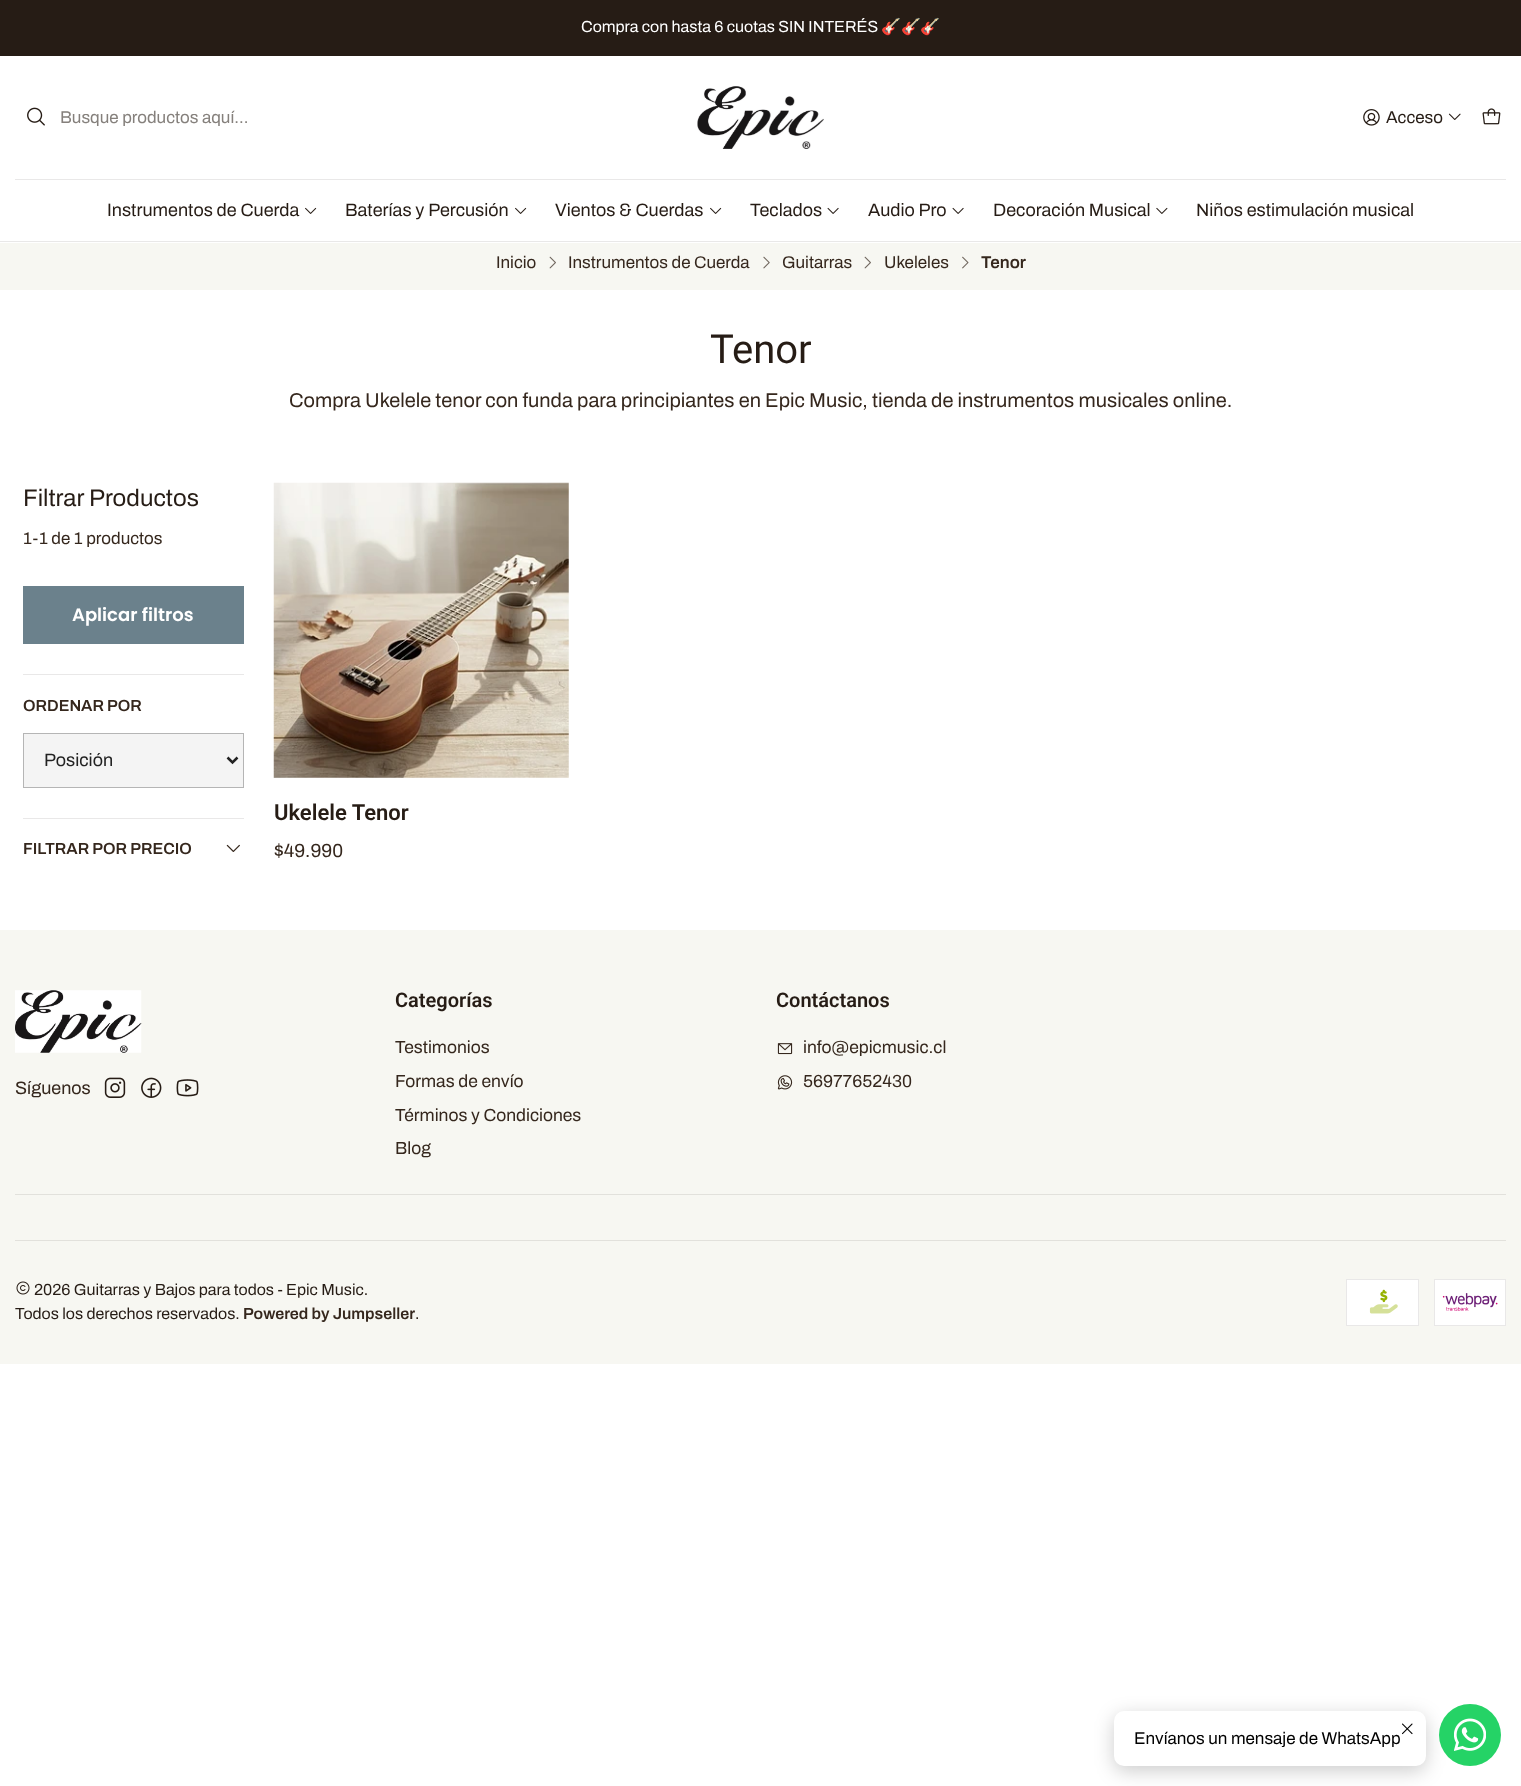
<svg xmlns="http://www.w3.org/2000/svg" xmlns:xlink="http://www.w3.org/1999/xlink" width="1521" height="1786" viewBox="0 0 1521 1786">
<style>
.cls-1{font:16px Archivo;fill:#ffffff}
.cls-2{font:16px Noto Color Emoji;fill:#ffffff}
.cls-3{font:17px Archivo;fill:#85807c}
.cls-4{font:17px Archivo;fill:#261c15}
.cls-5{font:18px Archivo;fill:#261c15}
.cls-6{font:17px Archivo;fill:#35271d}
.cls-7{font:600 17px Archivo;fill:#35271d}
.cls-8{font:40px Roboto;fill:#261c15}
.cls-9{font:20px Archivo;fill:#35271d}
.cls-10{font:24px Archivo;fill:#261c15}
.cls-11{font:600 18px Poppins;fill:#ffffff}
.cls-12{font:600 16px Archivo;fill:#35271d}
.cls-13{font:18px Archivo;fill:#222222}
.cls-14{font:600 22px Roboto;fill:#261c15}
.cls-15{font:19px Archivo;fill:#35271d}
.cls-16{font:18px Archivo;fill:#35271d}
.cls-17{font:600 20px Roboto;fill:#261c15}
.cls-18{font:17.5px Archivo;fill:#35271d}
.cls-19{font:16px Archivo;fill:#261c15}
.cls-20{font:17px Archivo;fill:#000000}
</style>
<rect width="100%" height="100%" fill="#ffffff"/>
<rect fill="#261c15" x="0" y="0" width="1521" height="56"/>
<rect fill="#e9e8e8" x="0" y="241" width="1521" height="1"/>
<image xlink:href="image0.png" x="27" y="107" width="18" height="19"/>
<image xlink:href="image1.png" x="697" y="86" width="127" height="63"/>
<image xlink:href="image2.png" x="1363" y="109" width="17" height="17"/>
<image xlink:href="image3.png" x="1448" y="113" width="13" height="7"/>
<image xlink:href="image4.png" x="1482" y="108" width="19" height="17"/>
<rect fill="#e9e8e8" x="15" y="179" width="1491" height="1"/>
<image xlink:href="image5.png" x="305" y="207" width="12" height="7"/>
<image xlink:href="image5.png" x="515" y="207" width="12" height="7"/>
<image xlink:href="image5.png" x="710" y="207" width="12" height="7"/>
<image xlink:href="image6.png" x="827" y="207" width="12" height="7"/>
<image xlink:href="image6.png" x="952" y="207" width="12" height="7"/>
<image xlink:href="image7.png" x="1156" y="207" width="12" height="7"/>
<rect fill="#f7f7f2" x="0" y="243" width="1521" height="47"/>
<image xlink:href="image8.png" x="549" y="256" width="7" height="13"/>
<image xlink:href="image9.png" x="763" y="256" width="7" height="13"/>
<image xlink:href="image8.png" x="864" y="256" width="7" height="13"/>
<image xlink:href="image10.png" x="962" y="256" width="7" height="13"/>
<rect fill="#6b818c" x="23" y="586" width="221" height="58"/>
<rect fill="#e9e8e8" x="23" y="674" width="221" height="1"/>
<rect fill="#f4f4f4" stroke="#b5b5b5" x="23.5" y="733.5" width="220" height="54"/>
<path fill="none" stroke="#222222" stroke-width="2.5" d="M227.5 757.5L232.5 762.5L237.5 757.5"/>
<rect fill="#e9e8e8" x="23" y="818" width="221" height="1"/>
<image xlink:href="image11.png" x="226" y="844" width="14" height="8"/>
<image xlink:href="image12.png" x="273" y="482" width="296" height="296"/>
<rect fill="#f7f7f2" x="0" y="930" width="1521" height="434"/>
<image xlink:href="image13.png" x="15" y="990" width="127" height="63"/>
<image xlink:href="image14.png" x="104" y="1077" width="22" height="21"/>
<image xlink:href="image15.png" x="141" y="1077" width="21" height="21"/>
<image xlink:href="image16.png" x="176" y="1079" width="23" height="18"/>
<image xlink:href="image17.png" x="777" y="1043" width="16" height="12"/>
<image xlink:href="image18.png" x="777" y="1075" width="16" height="15"/>
<rect fill="#e2e1dc" x="15" y="1194" width="1491" height="1"/>
<rect fill="#e2e1dc" x="15" y="1240" width="1491" height="1"/>
<image xlink:href="image19.png" x="16" y="1281" width="14" height="14"/>
<rect fill="#ffffff" stroke="#e9e8e8" x="1346.5" y="1279.5" width="72" height="46"/>
<image xlink:href="image20.png" x="1369" y="1289" width="29" height="25"/>
<rect fill="#ffffff" stroke="#e9e8e8" x="1434.5" y="1279.5" width="71" height="46"/>
<image xlink:href="image21.png" x="1442" y="1293" width="56" height="18"/>
<rect fill="#000000" fill-opacity="0.2" filter="blur(9.5px)" x="1114" y="1716" width="312" height="55" rx="10"/>
<rect fill="#ffffff" x="1114" y="1711" width="312" height="55" rx="10"/>
<image xlink:href="image22.png" x="1402" y="1723" width="11" height="12"/>
<circle fill="#25d366" cx="1470" cy="1735" r="31"/>
<image xlink:href="image23.png" x="1454" y="1718" width="32" height="33"/>
<text class="cls-1" x="581" y="32">Compra con hasta 6 cuotas SIN INTERÉS</text>
<text class="cls-2" x="881" y="32">🎸🎸🎸</text>
<text class="cls-3" x="60" y="123">Busque productos aquí...</text>
<text class="cls-4" x="1386" y="123">Acceso</text>
<text class="cls-5" x="107" y="216">Instrumentos de Cuerda</text>
<text class="cls-5" x="345" y="216">Baterías y Percusión</text>
<text class="cls-5" x="555" y="216">Vientos &amp; Cuerdas</text>
<text class="cls-5" x="750" y="216">Teclados</text>
<text class="cls-5" x="868" y="216">Audio Pro</text>
<text class="cls-5" x="993" y="216">Decoración Musical</text>
<text class="cls-5" x="1196" y="216">Niños estimulación musical</text>
<text class="cls-6" x="496" y="268">Inicio</text>
<text class="cls-6" x="568" y="268">Instrumentos de Cuerda</text>
<text class="cls-6" x="782" y="268">Guitarras</text>
<text class="cls-6" x="884" y="268">Ukeleles</text>
<text class="cls-7" x="981" y="268">Tenor</text>
<text class="cls-8" x="710" y="363">Tenor</text>
<text class="cls-9" x="289" y="407">Compra Ukelele tenor con funda para principiantes en Epic Music, tienda de instrumentos musicales online.</text>
<text class="cls-10" x="23" y="506">Filtrar Productos</text>
<text class="cls-6" x="23" y="544">1-1 de 1 productos</text>
<text class="cls-11" x="72" y="621">Aplicar filtros</text>
<text class="cls-12" x="23" y="711">ORDENAR POR</text>
<text class="cls-13" x="44" y="766">Posición</text>
<text class="cls-12" x="23" y="854">FILTRAR POR PRECIO</text>
<text class="cls-14" x="274" y="820">Ukelele Tenor</text>
<text class="cls-15" x="274" y="857">$49.990</text>
<text class="cls-16" x="15" y="1094">Síguenos</text>
<text class="cls-17" x="395" y="1007">Categorías</text>
<text class="cls-18"><tspan x="395" y="1053">Testimonios</tspan><tspan x="395" y="1087">Formas de envío</tspan><tspan x="395" y="1121">Términos y Condiciones</tspan><tspan x="395" y="1154">Blog</tspan></text>
<text class="cls-17" x="776" y="1007">Contáctanos</text>
<text class="cls-18"><tspan x="803" y="1053">info@epicmusic.cl</tspan><tspan x="803" y="1087">56977652430</tspan></text>
<text class="cls-19" x="34" y="1295">2026 Guitarras y Bajos para todos - Epic Music.</text>
<text class="cls-19" x="15" y="1319">Todos los derechos reservados.</text>
<text class="cls-12" x="243" y="1319">Powered by Jumpseller</text>
<text class="cls-19" x="415" y="1319">.</text>
<text class="cls-20" x="1134" y="1744">Envíanos un mensaje de WhatsApp</text>
</svg>
